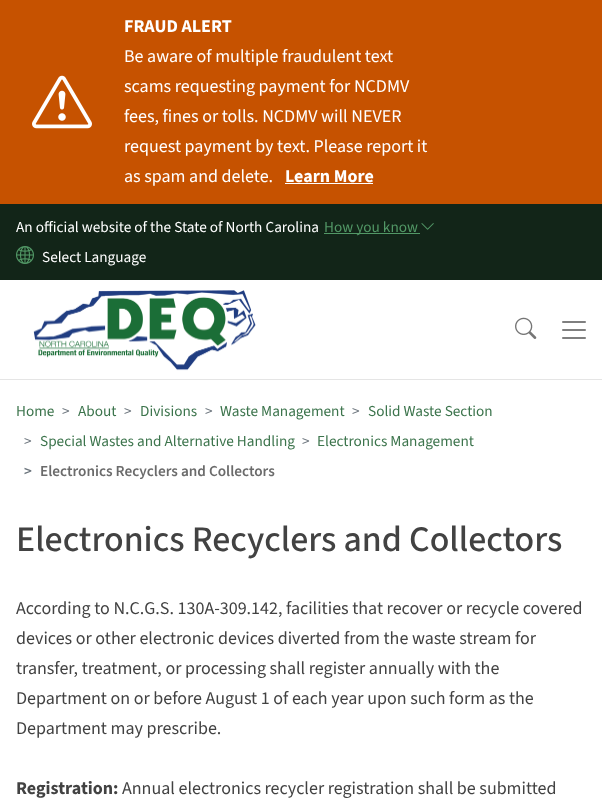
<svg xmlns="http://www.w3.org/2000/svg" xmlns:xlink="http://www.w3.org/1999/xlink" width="602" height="799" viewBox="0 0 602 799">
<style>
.cls-1{font:bold 18px 'Source Sans 3';fill:#ffffff}
.cls-2{font:18px 'Source Sans 3';fill:#ffffff}
.cls-3{font:15.25px 'Source Sans 3';fill:#ffffff}
.cls-4{font:15.25px 'Source Sans 3';fill:#529866}
.cls-5{font:15.25px 'Source Sans 3';fill:#3c744c}
.cls-6{font:15.25px 'Source Sans 3';fill:#6c757d}
.cls-7{font:600 15.25px 'Source Sans 3';fill:#6c757d}
.cls-8{font:600 15.25px 'Source Sans 3';fill:#6b6b6b}
.cls-9{font:500 36px 'Source Sans 3';fill:#424242}
.cls-10{font:18px 'Source Sans 3';fill:#424242}
.cls-11{font:bold 18px 'Source Sans 3';fill:#424242}
</style>
<rect width="100%" height="100%" fill="#ffffff"/>
<rect fill="#e5e5e5" x="0" y="379" width="602" height="1"/>
<rect fill="#c65200" x="0" y="0" width="602" height="204"/>
<image xlink:href="image0.png" x="32" y="75" width="60" height="54"/>
<rect fill="#ffffff" x="285" y="183" width="88" height="1"/>
<rect fill="#122518" x="0" y="204" width="602" height="76"/>
<rect fill="#529866" x="324" y="233" width="96" height="1"/>
<image xlink:href="image1.png" x="421" y="223" width="13" height="7"/>
<image xlink:href="image2.png" x="16" y="246" width="18" height="18"/>
<image xlink:href="image3.png" x="33" y="290" width="223" height="81"/>
<image xlink:href="image4.png" x="515" y="317" width="22" height="22"/>
<image xlink:href="image5.png" x="562" y="321" width="24" height="18"/>
<text class="cls-1" x="124" y="32">FRAUD ALERT</text>
<text class="cls-2"><tspan x="124" y="62">Be aware of multiple fraudulent text</tspan><tspan x="124" y="92">scams requesting payment for NCDMV</tspan><tspan x="124" y="122">fees, fines or tolls. NCDMV will NEVER</tspan><tspan x="124" y="152">request payment by text. Please report it</tspan><tspan x="124" y="182">as spam and delete.</tspan></text>
<text class="cls-1" x="285" y="182">Learn More</text>
<text class="cls-3" x="16" y="232">An official website of the State of North Carolina</text>
<text class="cls-4" x="324" y="232">How you know</text>
<text class="cls-3" x="42" y="262">Select Language</text>
<text class="cls-5" x="16" y="416">Home</text>
<text class="cls-6" x="62" y="416">&gt;</text>
<text class="cls-5" x="78" y="416">About</text>
<text class="cls-6" x="124" y="416">&gt;</text>
<text class="cls-5" x="140" y="416">Divisions</text>
<text class="cls-6" x="205" y="416">&gt;</text>
<text class="cls-5" x="220" y="416">Waste Management</text>
<text class="cls-6" x="352" y="416">&gt;</text>
<text class="cls-5" x="368" y="416">Solid Waste Section</text>
<text class="cls-6" x="24" y="446">&gt;</text>
<text class="cls-5" x="40" y="446">Special Wastes and Alternative Handling</text>
<text class="cls-6" x="302" y="446">&gt;</text>
<text class="cls-5" x="317" y="446">Electronics Management</text>
<text class="cls-7" x="24" y="476">&gt;</text>
<text class="cls-8" x="40" y="476">Electronics Recyclers and Collectors</text>
<text class="cls-9" x="16" y="551">Electronics Recyclers and Collectors</text>
<text class="cls-10"><tspan x="16" y="614">According to N.C.G.S. 130A-309.142, facilities that recover or recycle covered</tspan><tspan x="16" y="644">devices or other electronic devices diverted from the waste stream for</tspan><tspan x="16" y="674">transfer, treatment, or processing shall register annually with the</tspan><tspan x="16" y="704">Department on or before August 1 of each year upon such form as the</tspan><tspan x="16" y="734">Department may prescribe.</tspan></text>
<text class="cls-11" x="16" y="794">Registration:</text>
<text class="cls-10" x="122" y="794">Annual electronics recycler registration shall be submitted</text>
</svg>
